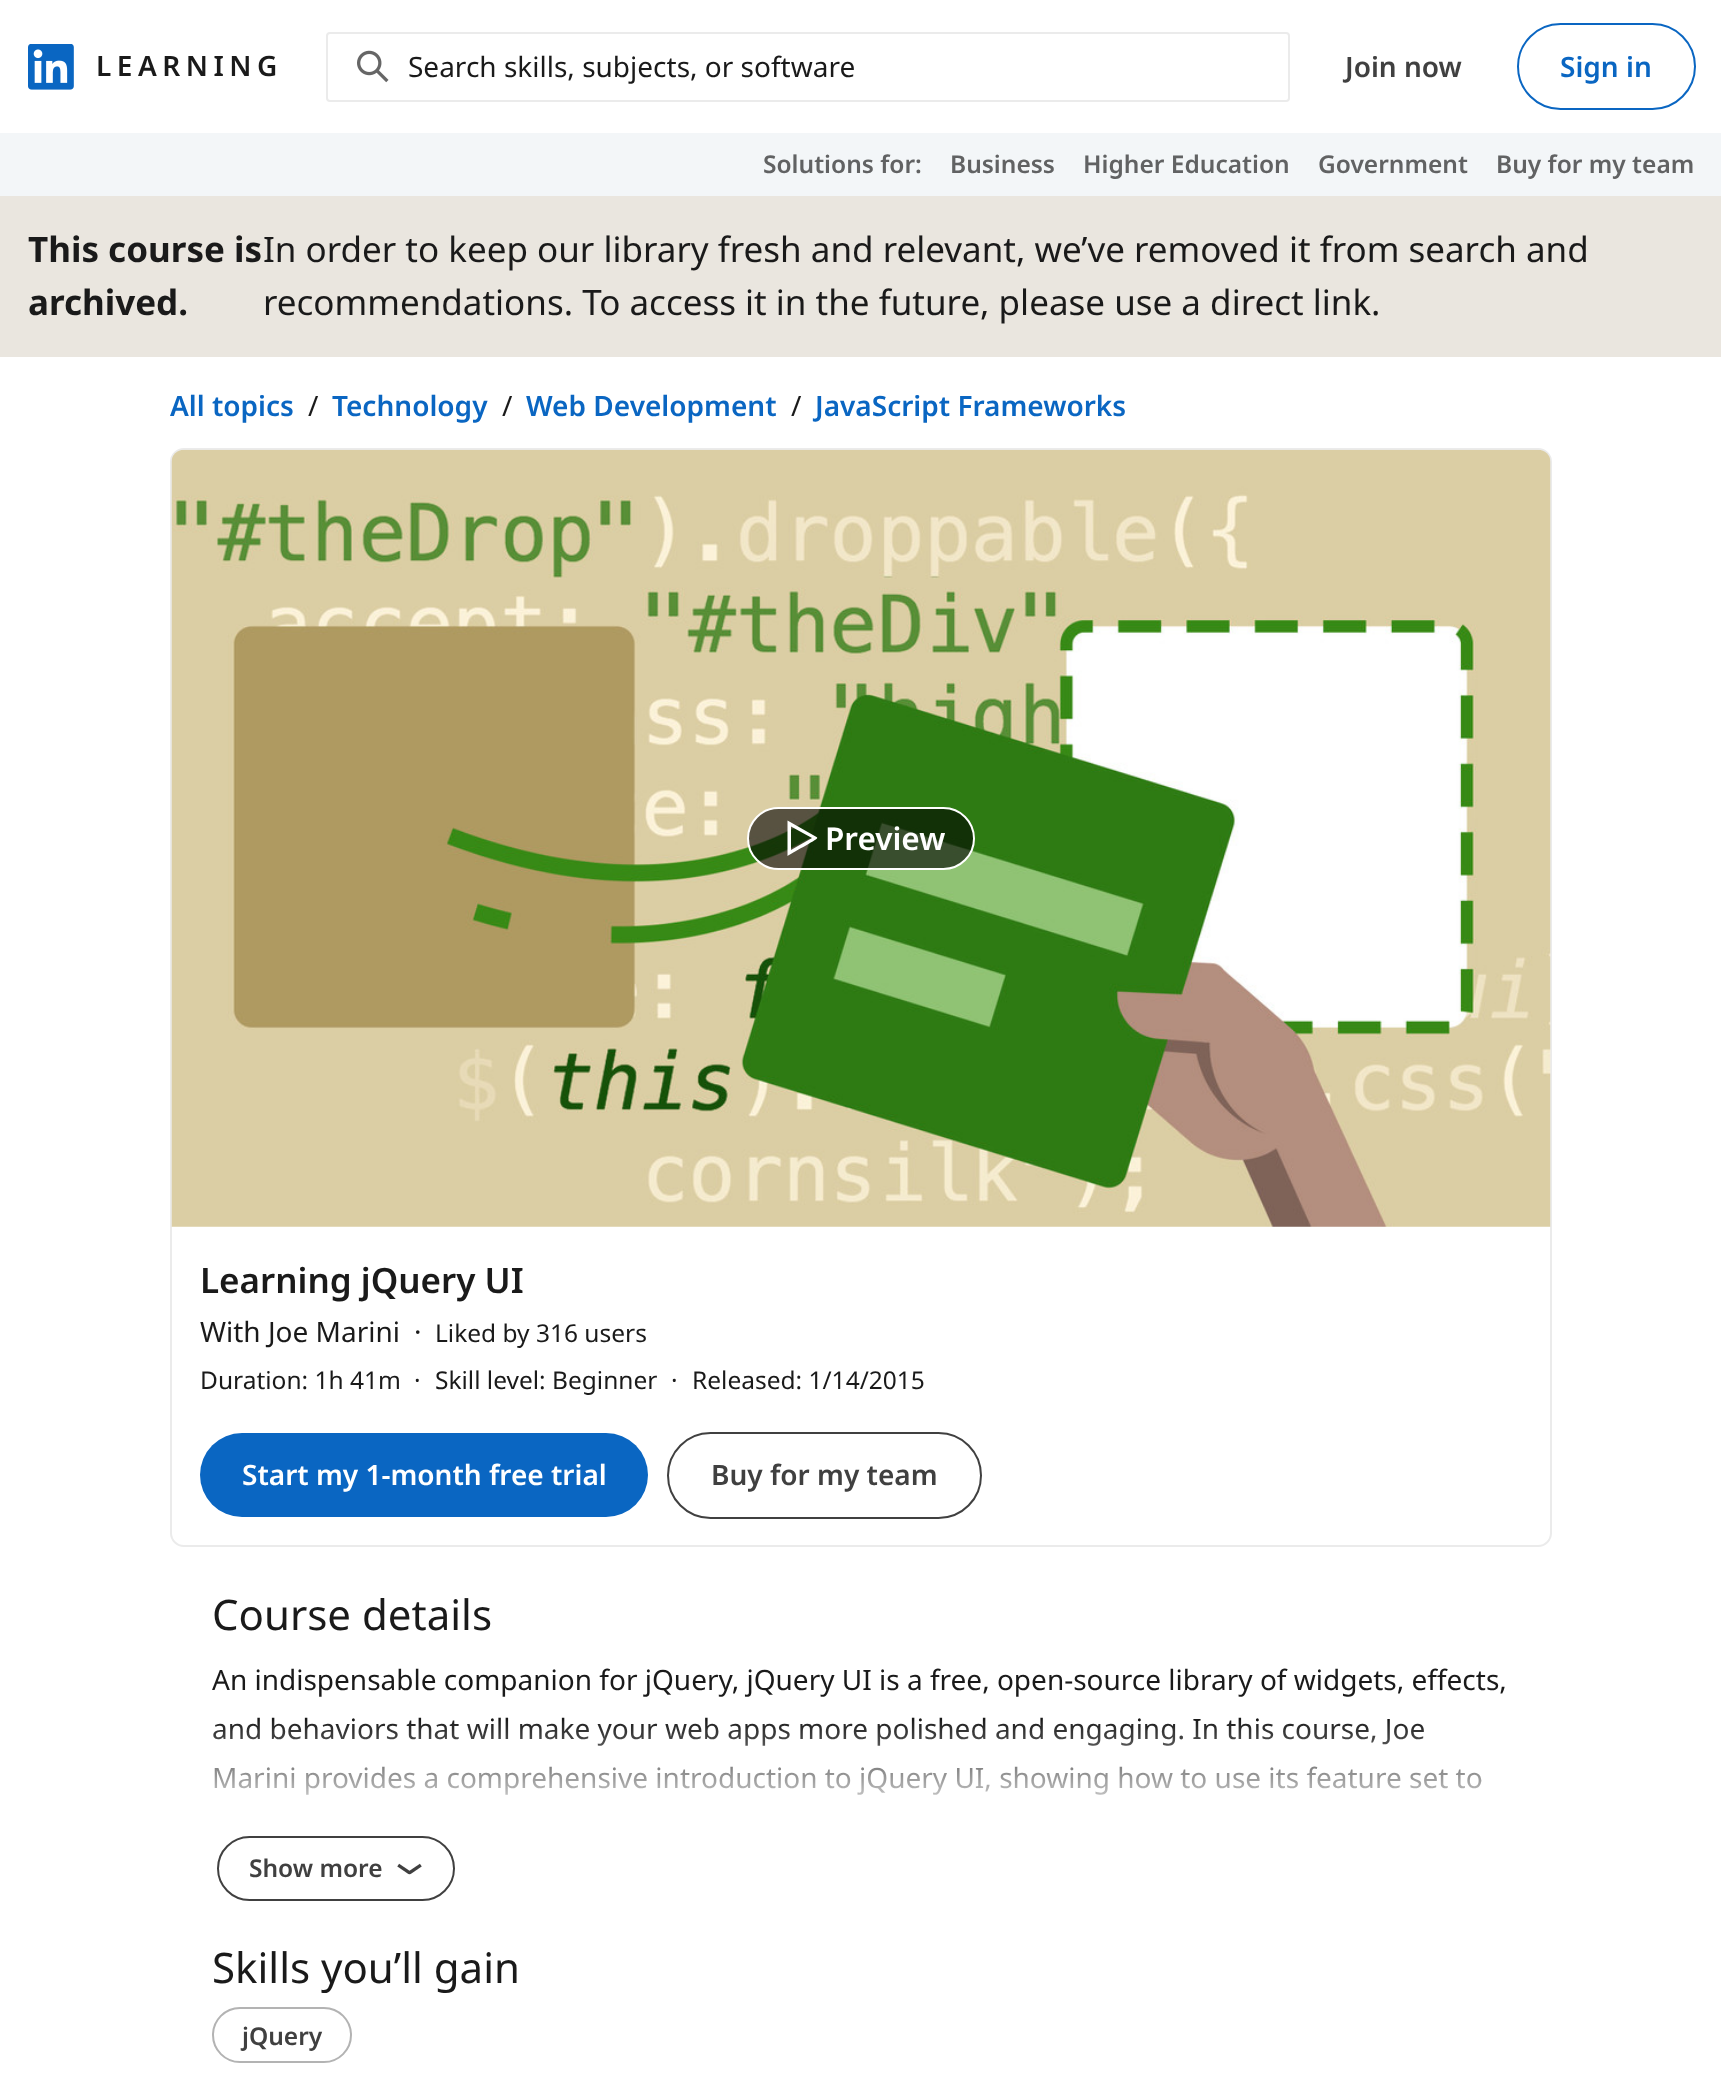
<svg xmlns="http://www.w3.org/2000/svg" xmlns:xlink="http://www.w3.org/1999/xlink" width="1721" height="2092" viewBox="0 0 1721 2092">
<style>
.cls-1{font:600 28px Noto Sans;letter-spacing:5.5px;fill:#1a1a1a}
.cls-2{font:28px Noto Sans;fill:#1a1a1a}
.cls-3{font:600 28px Noto Sans;fill:#404040}
.cls-4{font:600 28px Noto Sans;fill:#0a66c2}
.cls-5{font:600 24.5px Noto Sans;fill:#616263}
.cls-6{font:bold 35px Noto Sans;fill:#1a1a1a}
.cls-7{font:35px Noto Sans;fill:#1a1a1a}
.cls-8{font:600 31.5px Noto Sans;fill:#ffffff}
.cls-9{font:600 35px Noto Sans;fill:#1a1a1a}
.cls-10{font:24.5px Noto Sans;fill:#1a1a1a}
.cls-11{font:600 28px Noto Sans;fill:#ffffff}
.cls-12{font:42px Noto Sans;fill:#1a1a1a}
.cls-13{font:600 24.5px Noto Sans;fill:#404040}
</style>
<defs>
<linearGradient id="g1" gradientUnits="userSpaceOnUse" x1="861" y1="1824" x2="861" y2="1719"><stop offset="0" stop-color="#ffffff"/><stop offset="1" stop-color="#ffffff" stop-opacity="0"/></linearGradient>
</defs>
<rect width="100%" height="100%" fill="#ffffff"/>
<image xlink:href="image0.png" x="28" y="44" width="46" height="46"/>
<rect fill="none" stroke="#ebebeb" stroke-width="2" x="327" y="33" width="962" height="68" rx="3"/>
<image xlink:href="image1.png" x="357" y="50" width="32" height="33"/>
<rect fill="none" stroke="#0a66c2" stroke-width="2" x="1518" y="24" width="177" height="85" rx="42.5"/>
<rect fill="#f3f6f8" x="0" y="133" width="1721" height="63"/>
<rect fill="#eae6df" x="0" y="196" width="1721" height="161"/>
<rect fill="none" stroke="#ebebeb" stroke-width="2" x="171" y="449" width="1380" height="1097" rx="13"/>
<image xlink:href="image2.png" x="171" y="449" width="1380" height="778"/>
<rect fill="#000000" fill-opacity="0.6" stroke="#ffffff" stroke-width="2" x="748" y="808" width="226" height="61" rx="30.5"/>
<path fill="#ffffff" d="M816.5 837L787.5 820.5V856C790.5 854 817 839.5 817 838.5C817.5 838 817 837 816.5 837ZM791 850V826.5L812 838Z"/>
<rect fill="#0a66c2" x="200" y="1433" width="448" height="84" rx="42"/>
<rect fill="none" stroke="#404040" stroke-width="2" x="668" y="1433" width="313" height="85" rx="42.5"/>
<rect fill="none" stroke="#404040" stroke-width="2" x="218" y="1837" width="236" height="63" rx="31.5"/>
<image xlink:href="image3.png" x="397" y="1863" width="25" height="12"/>
<rect fill="none" stroke="#b3b3b3" stroke-width="2" x="213" y="2008" width="138" height="54" rx="27"/>
<text class="cls-1" x="96" y="76">LEARNING</text>
<text class="cls-2" x="408" y="77">Search skills, subjects, or software</text>
<text class="cls-3" x="1345" y="77">Join now</text>
<text class="cls-4" x="1560" y="77">Sign in</text>
<text class="cls-5" x="763" y="173">Solutions for:</text>
<text class="cls-5" x="950" y="173">Business</text>
<text class="cls-5" x="1083" y="173">Higher Education</text>
<text class="cls-5" x="1318" y="173">Government</text>
<text class="cls-5" x="1496" y="173">Buy for my team</text>
<text class="cls-6"><tspan x="28" y="262">This course is</tspan><tspan x="28" y="315">archived.</tspan></text>
<text class="cls-7"><tspan x="263" y="262">In order to keep our library fresh and relevant, we’ve removed it from search and</tspan><tspan x="263" y="315">recommendations. To access it in the future, please use a direct link.</tspan></text>
<text class="cls-4" x="170" y="416">All topics</text>
<text class="cls-2" x="308" y="416">/</text>
<text class="cls-4" x="332" y="416">Technology</text>
<text class="cls-2" x="502" y="416">/</text>
<text class="cls-4" x="526" y="416">Web Development</text>
<text class="cls-2" x="791" y="416">/</text>
<text class="cls-4" x="815" y="416">JavaScript Frameworks</text>
<text class="cls-8" x="825" y="850">Preview</text>
<text class="cls-9" x="200" y="1293">Learning jQuery UI</text>
<text class="cls-2" x="200" y="1342">With Joe Marini</text>
<text class="cls-2" x="414" y="1342">·</text>
<text class="cls-10" x="435" y="1342">Liked by 316 users</text>
<text class="cls-10" x="200" y="1389">Duration: 1h 41m</text>
<text class="cls-10" x="414" y="1389">·</text>
<text class="cls-10" x="435" y="1389">Skill level: Beginner</text>
<text class="cls-10" x="671" y="1389">·</text>
<text class="cls-10" x="692" y="1389">Released: 1/14/2015</text>
<text class="cls-11" x="242" y="1485">Start my 1-month free trial</text>
<text class="cls-3" x="711" y="1485">Buy for my team</text>
<text class="cls-12" x="212" y="1630">Course details</text>
<text class="cls-2"><tspan x="212" y="1690">An indispensable companion for jQuery, jQuery UI is a free, open-source library of widgets, effects,</tspan><tspan x="212" y="1739">and behaviors that will make your web apps more polished and engaging. In this course, Joe</tspan><tspan x="212" y="1788">Marini provides a comprehensive introduction to jQuery UI, showing how to use its feature set to</tspan></text>
<rect fill="url(#g1)" x="213" y="1721" width="1268" height="74"/>
<text class="cls-13" x="249" y="1877">Show more</text>
<text class="cls-12" x="212" y="1983">Skills you’ll gain</text>
<text class="cls-13" x="242" y="2045">jQuery</text>
</svg>
